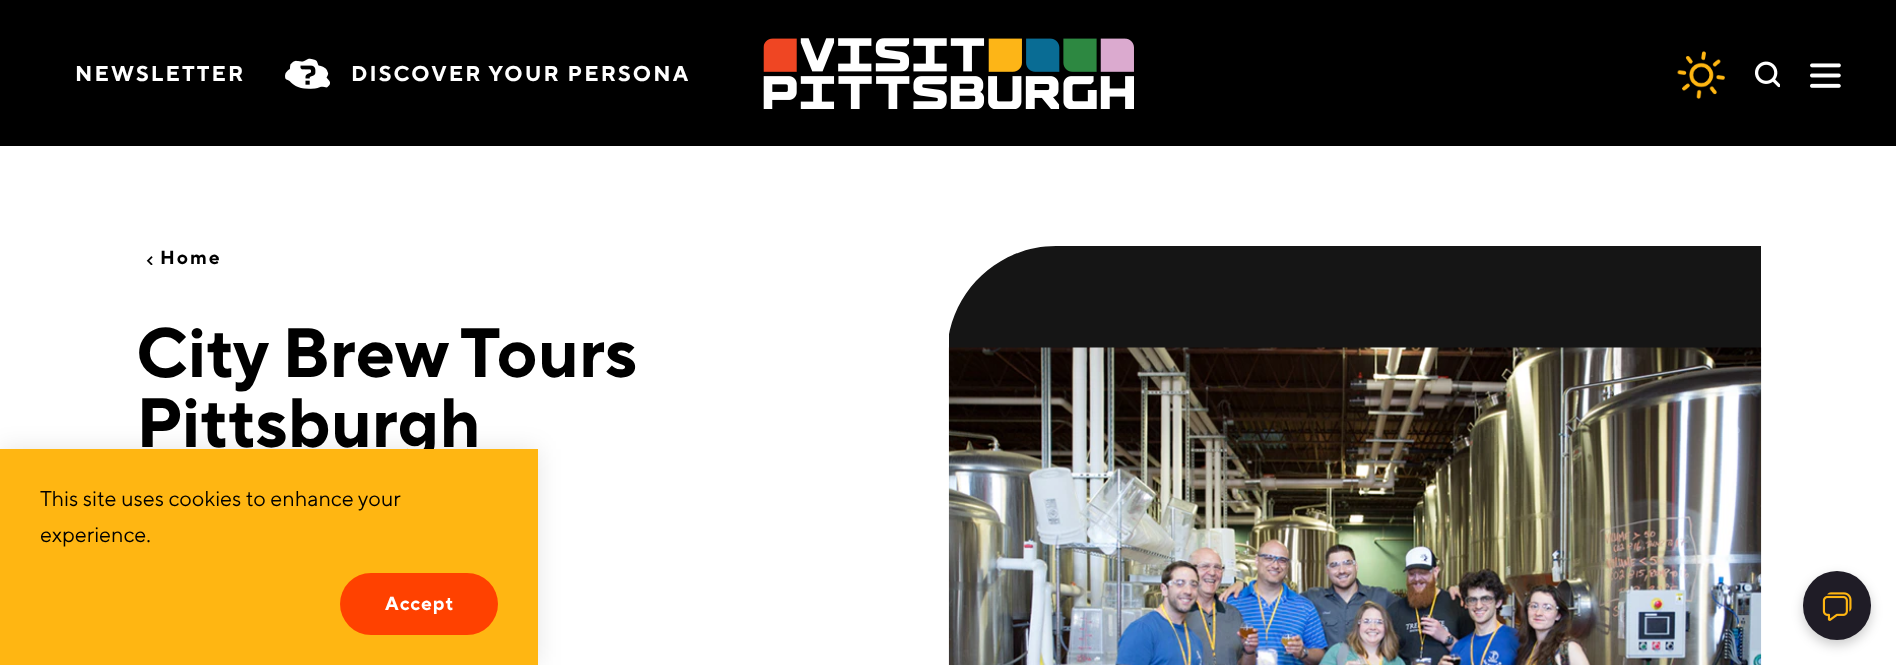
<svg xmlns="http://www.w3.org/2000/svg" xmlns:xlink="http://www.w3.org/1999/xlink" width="1896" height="665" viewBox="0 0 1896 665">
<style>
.cls-1{font:bold 21.5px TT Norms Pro;letter-spacing:2.15px;fill:#ffffff}
.cls-2{font:bold 19px TT Norms Pro;letter-spacing:2px;fill:#000000}
.cls-3{font:bold 69.5px TT Norms Pro;fill:#000000}
.cls-4{font:21.5px TT Norms Pro;fill:#000000}
.cls-5{font:bold 19px TT Norms Pro;letter-spacing:1px;fill:#ffffff}
</style>
<rect width="100%" height="100%" fill="#ffffff"/>
<rect fill="#000000" x="0" y="0" width="1896" height="146"/>
<image xlink:href="image0.png" x="285" y="58" width="45" height="31"/>
<image xlink:href="image1.png" x="763" y="38" width="371" height="71"/>
<image xlink:href="image2.png" x="1677" y="51" width="48" height="48"/>
<image xlink:href="image3.png" x="1755" y="61" width="25" height="27"/>
<image xlink:href="image4.png" x="1810" y="63" width="31" height="25"/>
<image xlink:href="image5.png" x="146" y="256" width="7" height="9"/>
<rect fill="#151515" x="949" y="246" width="812" height="102"/>
<image xlink:href="image6.png" x="948" y="347" width="814" height="318"/>
<path fill="#ffffff" d="M947 355C947 295 996 246 1056 246H947Z"/>
<rect fill="#000000" fill-opacity="0.1" filter="blur(12.5px)" x="0" y="449" width="538" height="216"/>
<rect fill="#000000" fill-opacity="0.2" filter="blur(6px)" x="1803" y="576" width="68" height="69" rx="34"/>
<rect fill="#1f1c26" x="1803" y="571" width="68" height="69" rx="34"/>
<image xlink:href="image7.png" x="1822" y="592" width="30" height="29"/>
<text class="cls-1" x="75" y="81">NEWSLETTER</text>
<text class="cls-1" x="351" y="81">DISCOVER YOUR PERSONA</text>
<text class="cls-2" x="160" y="264">Home</text>
<text class="cls-3"><tspan x="136" y="377">City Brew Tours</tspan><tspan x="136" y="447">Pittsburgh</tspan></text>
<rect fill="#ffb612" x="0" y="449" width="538" height="216"/>
<text class="cls-4"><tspan x="40" y="506">This site uses cookies to enhance your</tspan><tspan x="40" y="542">experience.</tspan></text>
<rect fill="#ff4100" x="340" y="573" width="158" height="62" rx="31"/>
<text class="cls-5" x="385" y="610">Accept</text>
</svg>
